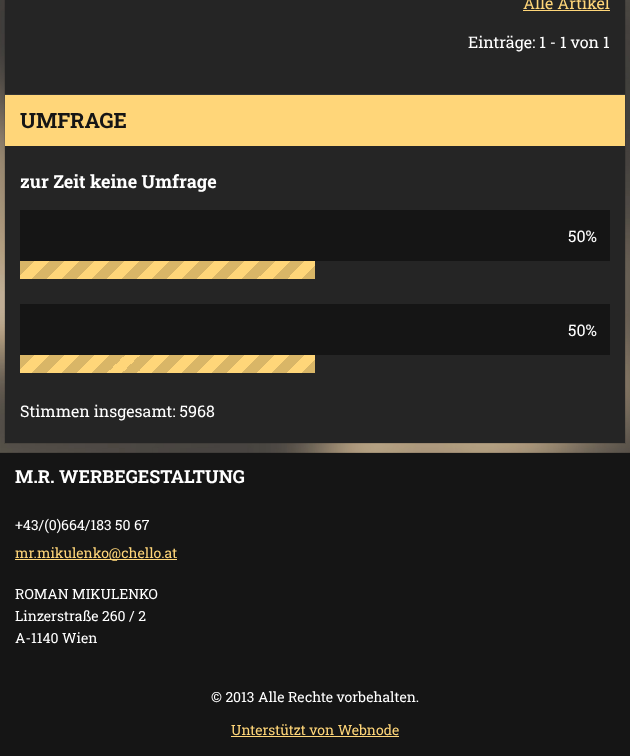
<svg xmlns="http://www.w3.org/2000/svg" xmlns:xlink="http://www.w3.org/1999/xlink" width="630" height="756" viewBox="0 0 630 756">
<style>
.cls-1{font:16px Roboto Slab;fill:#ffd679}
.cls-2{font:16px Roboto Slab;fill:#ffffff}
.cls-3{font:bold 21px Roboto Slab;fill:#151515}
.cls-4{font:bold 18px Roboto Slab;fill:#ffffff}
.cls-5{font:14px Roboto Slab;fill:#ffffff}
.cls-6{font:14px Roboto Slab;fill:#ffd679}
</style>
<defs>
<linearGradient id="g1" gradientUnits="userSpaceOnUse" x1="20" y1="261" x2="50" y2="291"><stop offset="0.25" stop-color="#d9b667"/><stop offset="0.25" stop-color="#ffd679"/><stop offset="0.5" stop-color="#ffd679"/><stop offset="0.5" stop-color="#d9b667"/><stop offset="0.75" stop-color="#d9b667"/><stop offset="0.75" stop-color="#ffd679"/><stop offset="1" stop-color="#ffd679"/></linearGradient>
<linearGradient id="g2" gradientUnits="userSpaceOnUse" x1="50" y1="261" x2="80" y2="291"><stop offset="0.25" stop-color="#d9b667"/><stop offset="0.25" stop-color="#ffd679"/><stop offset="0.5" stop-color="#ffd679"/><stop offset="0.5" stop-color="#d9b667"/><stop offset="0.75" stop-color="#d9b667"/><stop offset="0.75" stop-color="#ffd679"/><stop offset="1" stop-color="#ffd679"/></linearGradient>
<linearGradient id="g3" gradientUnits="userSpaceOnUse" x1="80" y1="261" x2="110" y2="291"><stop offset="0.25" stop-color="#d9b667"/><stop offset="0.25" stop-color="#ffd679"/><stop offset="0.5" stop-color="#ffd679"/><stop offset="0.5" stop-color="#d9b667"/><stop offset="0.75" stop-color="#d9b667"/><stop offset="0.75" stop-color="#ffd679"/><stop offset="1" stop-color="#ffd679"/></linearGradient>
<linearGradient id="g4" gradientUnits="userSpaceOnUse" x1="110" y1="261" x2="140" y2="291"><stop offset="0.25" stop-color="#d9b667"/><stop offset="0.25" stop-color="#ffd679"/><stop offset="0.5" stop-color="#ffd679"/><stop offset="0.5" stop-color="#d9b667"/><stop offset="0.75" stop-color="#d9b667"/><stop offset="0.75" stop-color="#ffd679"/><stop offset="1" stop-color="#ffd679"/></linearGradient>
<linearGradient id="g5" gradientUnits="userSpaceOnUse" x1="140" y1="261" x2="170" y2="291"><stop offset="0.25" stop-color="#d9b667"/><stop offset="0.25" stop-color="#ffd679"/><stop offset="0.5" stop-color="#ffd679"/><stop offset="0.5" stop-color="#d9b667"/><stop offset="0.75" stop-color="#d9b667"/><stop offset="0.75" stop-color="#ffd679"/><stop offset="1" stop-color="#ffd679"/></linearGradient>
<linearGradient id="g6" gradientUnits="userSpaceOnUse" x1="170" y1="261" x2="200" y2="291"><stop offset="0.25" stop-color="#d9b667"/><stop offset="0.25" stop-color="#ffd679"/><stop offset="0.5" stop-color="#ffd679"/><stop offset="0.5" stop-color="#d9b667"/><stop offset="0.75" stop-color="#d9b667"/><stop offset="0.75" stop-color="#ffd679"/><stop offset="1" stop-color="#ffd679"/></linearGradient>
<linearGradient id="g7" gradientUnits="userSpaceOnUse" x1="200" y1="261" x2="230" y2="291"><stop offset="0.25" stop-color="#d9b667"/><stop offset="0.25" stop-color="#ffd679"/><stop offset="0.5" stop-color="#ffd679"/><stop offset="0.5" stop-color="#d9b667"/><stop offset="0.75" stop-color="#d9b667"/><stop offset="0.75" stop-color="#ffd679"/><stop offset="1" stop-color="#ffd679"/></linearGradient>
<linearGradient id="g8" gradientUnits="userSpaceOnUse" x1="230" y1="261" x2="260" y2="291"><stop offset="0.25" stop-color="#d9b667"/><stop offset="0.25" stop-color="#ffd679"/><stop offset="0.5" stop-color="#ffd679"/><stop offset="0.5" stop-color="#d9b667"/><stop offset="0.75" stop-color="#d9b667"/><stop offset="0.75" stop-color="#ffd679"/><stop offset="1" stop-color="#ffd679"/></linearGradient>
<linearGradient id="g9" gradientUnits="userSpaceOnUse" x1="260" y1="261" x2="290" y2="291"><stop offset="0.25" stop-color="#d9b667"/><stop offset="0.25" stop-color="#ffd679"/><stop offset="0.5" stop-color="#ffd679"/><stop offset="0.5" stop-color="#d9b667"/><stop offset="0.75" stop-color="#d9b667"/><stop offset="0.75" stop-color="#ffd679"/><stop offset="1" stop-color="#ffd679"/></linearGradient>
<linearGradient id="g10" gradientUnits="userSpaceOnUse" x1="290" y1="261" x2="320" y2="291"><stop offset="0.25" stop-color="#d9b667"/><stop offset="0.25" stop-color="#ffd679"/><stop offset="0.5" stop-color="#ffd679"/><stop offset="0.5" stop-color="#d9b667"/><stop offset="0.75" stop-color="#d9b667"/><stop offset="0.75" stop-color="#ffd679"/><stop offset="1" stop-color="#ffd679"/></linearGradient>
<linearGradient id="g11" gradientUnits="userSpaceOnUse" x1="20" y1="355" x2="50" y2="385"><stop offset="0.25" stop-color="#d9b667"/><stop offset="0.25" stop-color="#ffd679"/><stop offset="0.5" stop-color="#ffd679"/><stop offset="0.5" stop-color="#d9b667"/><stop offset="0.75" stop-color="#d9b667"/><stop offset="0.75" stop-color="#ffd679"/><stop offset="1" stop-color="#ffd679"/></linearGradient>
<linearGradient id="g12" gradientUnits="userSpaceOnUse" x1="50" y1="355" x2="80" y2="385"><stop offset="0.25" stop-color="#d9b667"/><stop offset="0.25" stop-color="#ffd679"/><stop offset="0.5" stop-color="#ffd679"/><stop offset="0.5" stop-color="#d9b667"/><stop offset="0.75" stop-color="#d9b667"/><stop offset="0.75" stop-color="#ffd679"/><stop offset="1" stop-color="#ffd679"/></linearGradient>
<linearGradient id="g13" gradientUnits="userSpaceOnUse" x1="80" y1="355" x2="110" y2="385"><stop offset="0.25" stop-color="#d9b667"/><stop offset="0.25" stop-color="#ffd679"/><stop offset="0.5" stop-color="#ffd679"/><stop offset="0.5" stop-color="#d9b667"/><stop offset="0.75" stop-color="#d9b667"/><stop offset="0.75" stop-color="#ffd679"/><stop offset="1" stop-color="#ffd679"/></linearGradient>
<linearGradient id="g14" gradientUnits="userSpaceOnUse" x1="110" y1="355" x2="140" y2="385"><stop offset="0.25" stop-color="#d9b667"/><stop offset="0.25" stop-color="#ffd679"/><stop offset="0.5" stop-color="#ffd679"/><stop offset="0.5" stop-color="#d9b667"/><stop offset="0.75" stop-color="#d9b667"/><stop offset="0.75" stop-color="#ffd679"/><stop offset="1" stop-color="#ffd679"/></linearGradient>
<linearGradient id="g15" gradientUnits="userSpaceOnUse" x1="140" y1="355" x2="170" y2="385"><stop offset="0.25" stop-color="#d9b667"/><stop offset="0.25" stop-color="#ffd679"/><stop offset="0.5" stop-color="#ffd679"/><stop offset="0.5" stop-color="#d9b667"/><stop offset="0.75" stop-color="#d9b667"/><stop offset="0.75" stop-color="#ffd679"/><stop offset="1" stop-color="#ffd679"/></linearGradient>
<linearGradient id="g16" gradientUnits="userSpaceOnUse" x1="170" y1="355" x2="200" y2="385"><stop offset="0.25" stop-color="#d9b667"/><stop offset="0.25" stop-color="#ffd679"/><stop offset="0.5" stop-color="#ffd679"/><stop offset="0.5" stop-color="#d9b667"/><stop offset="0.75" stop-color="#d9b667"/><stop offset="0.75" stop-color="#ffd679"/><stop offset="1" stop-color="#ffd679"/></linearGradient>
<linearGradient id="g17" gradientUnits="userSpaceOnUse" x1="200" y1="355" x2="230" y2="385"><stop offset="0.25" stop-color="#d9b667"/><stop offset="0.25" stop-color="#ffd679"/><stop offset="0.5" stop-color="#ffd679"/><stop offset="0.5" stop-color="#d9b667"/><stop offset="0.75" stop-color="#d9b667"/><stop offset="0.75" stop-color="#ffd679"/><stop offset="1" stop-color="#ffd679"/></linearGradient>
<linearGradient id="g18" gradientUnits="userSpaceOnUse" x1="230" y1="355" x2="260" y2="385"><stop offset="0.25" stop-color="#d9b667"/><stop offset="0.25" stop-color="#ffd679"/><stop offset="0.5" stop-color="#ffd679"/><stop offset="0.5" stop-color="#d9b667"/><stop offset="0.75" stop-color="#d9b667"/><stop offset="0.75" stop-color="#ffd679"/><stop offset="1" stop-color="#ffd679"/></linearGradient>
<linearGradient id="g19" gradientUnits="userSpaceOnUse" x1="260" y1="355" x2="290" y2="385"><stop offset="0.25" stop-color="#d9b667"/><stop offset="0.25" stop-color="#ffd679"/><stop offset="0.5" stop-color="#ffd679"/><stop offset="0.5" stop-color="#d9b667"/><stop offset="0.75" stop-color="#d9b667"/><stop offset="0.75" stop-color="#ffd679"/><stop offset="1" stop-color="#ffd679"/></linearGradient>
<linearGradient id="g20" gradientUnits="userSpaceOnUse" x1="290" y1="355" x2="320" y2="385"><stop offset="0.25" stop-color="#d9b667"/><stop offset="0.25" stop-color="#ffd679"/><stop offset="0.5" stop-color="#ffd679"/><stop offset="0.5" stop-color="#d9b667"/><stop offset="0.75" stop-color="#d9b667"/><stop offset="0.75" stop-color="#ffd679"/><stop offset="1" stop-color="#ffd679"/></linearGradient>
</defs>
<rect width="100%" height="100%" fill="#ffffff"/>
<image xlink:href="image0.png" x="0" y="0" width="630" height="453"/>
<rect fill="none" stroke="#000000" stroke-opacity="0.1" x="4.5" y="-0.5" width="621" height="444"/>
<rect fill="#252525" x="5" y="0" width="620" height="94"/>
<rect fill="#ffd679" x="523" y="10" width="87" height="1"/>
<rect fill="#353535" x="5" y="94" width="620" height="1"/>
<rect fill="#ffd679" x="5" y="95" width="620" height="51"/>
<rect fill="#252525" x="5" y="146" width="620" height="297"/>
<rect fill="#151515" x="20" y="210" width="590" height="51"/>
<rect fill="url(#g1)" x="20" y="261" width="30" height="18"/>
<rect fill="url(#g2)" x="50" y="261" width="30" height="18"/>
<rect fill="url(#g3)" x="80" y="261" width="30" height="18"/>
<rect fill="url(#g4)" x="110" y="261" width="30" height="18"/>
<rect fill="url(#g5)" x="140" y="261" width="30" height="18"/>
<rect fill="url(#g6)" x="170" y="261" width="30" height="18"/>
<rect fill="url(#g7)" x="200" y="261" width="30" height="18"/>
<rect fill="url(#g8)" x="230" y="261" width="30" height="18"/>
<rect fill="url(#g9)" x="260" y="261" width="30" height="18"/>
<rect fill="url(#g10)" x="290" y="261" width="25" height="18"/>
<rect fill="#151515" x="20" y="304" width="590" height="51"/>
<rect fill="url(#g11)" x="20" y="355" width="30" height="18"/>
<rect fill="url(#g12)" x="50" y="355" width="30" height="18"/>
<rect fill="url(#g13)" x="80" y="355" width="30" height="18"/>
<rect fill="url(#g14)" x="110" y="355" width="30" height="18"/>
<rect fill="url(#g15)" x="140" y="355" width="30" height="18"/>
<rect fill="url(#g16)" x="170" y="355" width="30" height="18"/>
<rect fill="url(#g17)" x="200" y="355" width="30" height="18"/>
<rect fill="url(#g18)" x="230" y="355" width="30" height="18"/>
<rect fill="url(#g19)" x="260" y="355" width="30" height="18"/>
<rect fill="url(#g20)" x="290" y="355" width="25" height="18"/>
<rect fill="none" stroke="#000000" stroke-opacity="0.1" x="-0.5" y="452.5" width="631" height="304"/>
<rect fill="#151515" x="0" y="453" width="630" height="303"/>
<rect fill="#ffd679" x="15" y="559" width="162" height="1"/>
<rect fill="#ffd679" x="231" y="736" width="168" height="1"/>
<text class="cls-1" x="523" y="9">Alle Artikel</text>
<text class="cls-2" x="468" y="48">Einträge: 1 - 1 von 1</text>
<text class="cls-3" x="20" y="128">UMFRAGE</text>
<text class="cls-4" x="20" y="188">zur Zeit keine Umfrage</text>
<text class="cls-2" x="568" y="242">50%</text>
<text class="cls-2" x="568" y="336">50%</text>
<text class="cls-2" x="20" y="417">Stimmen insgesamt: 5968</text>
<text class="cls-4" x="15" y="483">M.R. WERBEGESTALTUNG</text>
<text class="cls-5" x="15" y="530">+43/(0)664/183 50 67</text>
<text class="cls-6" x="15" y="558">mr.mikulenko@chello.at</text>
<text class="cls-5"><tspan x="15" y="599">ROMAN MIKULENKO</tspan><tspan x="15" y="621">Linzerstraße 260 / 2</tspan><tspan x="15" y="643">A-1140 Wien</tspan></text>
<text class="cls-5" x="211" y="702">© 2013 Alle Rechte vorbehalten.</text>
<text class="cls-6" x="231" y="735">Unterstützt von Webnode</text>
</svg>
